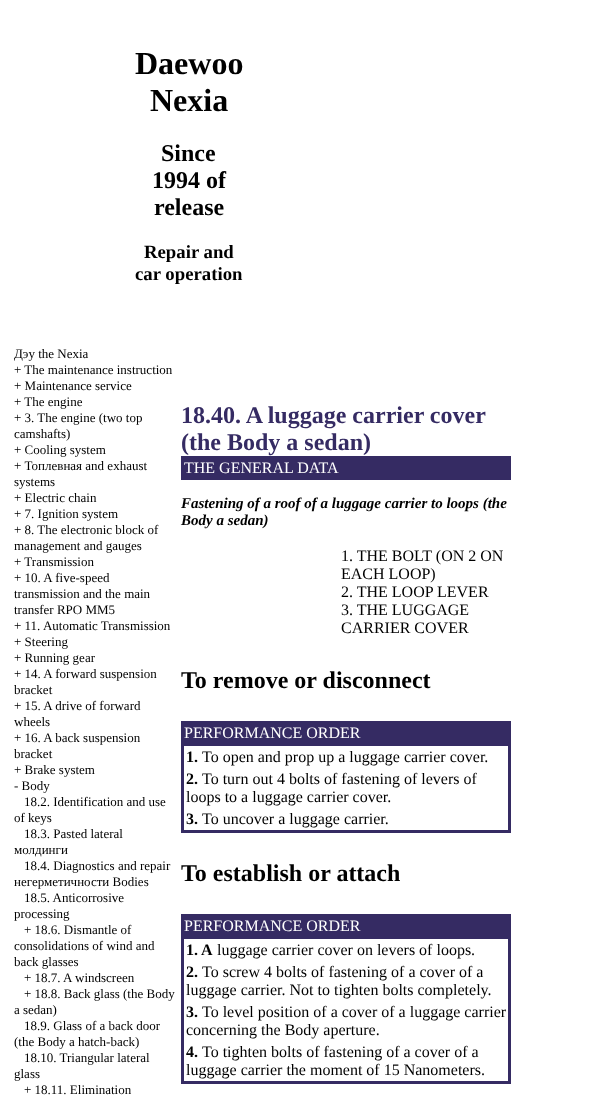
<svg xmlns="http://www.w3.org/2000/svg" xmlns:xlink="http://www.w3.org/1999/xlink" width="594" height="1101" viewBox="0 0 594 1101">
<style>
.cls-1{font:bold 32px Liberation Serif;fill:#000000}
.cls-2{font:bold 24px Liberation Serif;fill:#000000}
.cls-3{font:bold 18.75px Liberation Serif;fill:#000000}
.cls-4{font:13px Liberation Serif;fill:#000000}
.cls-5{font:bold 24px Liberation Serif;fill:#352b63}
.cls-6{font:16px Liberation Serif;fill:#ffffff}
.cls-7{font:italic bold 15px Liberation Serif;fill:#000000}
.cls-8{font:16px Liberation Serif;fill:#000000}
.cls-9{font:bold 16px Liberation Serif;fill:#000000}
</style>
<rect width="100%" height="100%" fill="#ffffff"/>
<rect fill="#352b63" x="181" y="456" width="330" height="24"/>
<rect fill="#352b63" x="181" y="721" width="330" height="112"/>
<rect fill="#ffffff" x="184" y="746" width="324" height="84"/>
<rect fill="#352b63" x="181" y="914" width="330" height="170"/>
<rect fill="#ffffff" x="184" y="939" width="324" height="142"/>
<text class="cls-1" x="135" y="74">Daewoo</text>
<text class="cls-1" x="150" y="111">Nexia</text>
<text class="cls-2" x="161" y="161">Since</text>
<text class="cls-2" x="152" y="188">1994 of</text>
<text class="cls-2" x="154" y="215">release</text>
<text class="cls-3" x="144" y="258">Repair and</text>
<text class="cls-3" x="135" y="280">car operation</text>
<text class="cls-4"><tspan x="14" y="358">Дэу the Nexia</tspan><tspan x="14" y="374">+ The maintenance instruction</tspan><tspan x="14" y="390">+ Maintenance service</tspan><tspan x="14" y="406">+ The engine</tspan><tspan x="14" y="422">+ 3. The engine (two top</tspan><tspan x="14" y="438">camshafts)</tspan><tspan x="14" y="454">+ Cooling system</tspan><tspan x="14" y="470">+ Топлевная and exhaust</tspan><tspan x="14" y="486">systems</tspan><tspan x="14" y="502">+ Electric chain</tspan><tspan x="14" y="518">+ 7. Ignition system</tspan><tspan x="14" y="534">+ 8. The electronic block of</tspan><tspan x="14" y="550">management and gauges</tspan><tspan x="14" y="566">+ Transmission</tspan><tspan x="14" y="582">+ 10. A five-speed</tspan><tspan x="14" y="598">transmission and the main</tspan><tspan x="14" y="614">transfer RPO MM5</tspan><tspan x="14" y="630">+ 11. Automatic Transmission</tspan><tspan x="14" y="646">+ Steering</tspan><tspan x="14" y="662">+ Running gear</tspan><tspan x="14" y="678">+ 14. A forward suspension</tspan><tspan x="14" y="694">bracket</tspan><tspan x="14" y="710">+ 15. A drive of forward</tspan><tspan x="14" y="726">wheels</tspan><tspan x="14" y="742">+ 16. A back suspension</tspan><tspan x="14" y="758">bracket</tspan><tspan x="14" y="774">+ Brake system</tspan><tspan x="14" y="790">- Body</tspan></text>
<text class="cls-4" x="24" y="806">18.2. Identification and use</text>
<text class="cls-4" x="14" y="822">of keys</text>
<text class="cls-4" x="24" y="838">18.3. Pasted lateral</text>
<text class="cls-4" x="14" y="854">молдинги</text>
<text class="cls-4" x="24" y="870">18.4. Diagnostics and repair</text>
<text class="cls-4" x="14" y="886">негерметичности Bodies</text>
<text class="cls-4" x="24" y="902">18.5. Anticorrosive</text>
<text class="cls-4" x="14" y="918">processing</text>
<text class="cls-4" x="24" y="934">+ 18.6. Dismantle of</text>
<text class="cls-4"><tspan x="14" y="950">consolidations of wind and</tspan><tspan x="14" y="966">back glasses</tspan></text>
<text class="cls-4"><tspan x="24" y="982">+ 18.7. A windscreen</tspan><tspan x="24" y="998">+ 18.8. Back glass (the Body</tspan></text>
<text class="cls-4" x="14" y="1014">a sedan)</text>
<text class="cls-4" x="24" y="1030">18.9. Glass of a back door</text>
<text class="cls-4" x="14" y="1046">(the Body a hatch-back)</text>
<text class="cls-4" x="24" y="1062">18.10. Triangular lateral</text>
<text class="cls-4" x="14" y="1078">glass</text>
<text class="cls-4" x="24" y="1094">+ 18.11. Elimination</text>
<text class="cls-5"><tspan x="181" y="423">18.40. A luggage carrier cover</tspan><tspan x="181" y="450">(the Body a sedan)</tspan></text>
<text class="cls-6" x="184" y="473">THE GENERAL DATA</text>
<text class="cls-7"><tspan x="181" y="508">Fastening of a roof of a luggage carrier to loops (the</tspan><tspan x="181" y="525">Body a sedan)</tspan></text>
<text class="cls-8"><tspan x="341" y="561">1. THE BOLT (ON 2 ON</tspan><tspan x="341" y="579">EACH LOOP)</tspan><tspan x="341" y="597">2. THE LOOP LEVER</tspan><tspan x="341" y="615">3. THE LUGGAGE</tspan><tspan x="341" y="633">CARRIER COVER</tspan></text>
<text class="cls-2" x="181" y="688">To remove or disconnect</text>
<text class="cls-6" x="184" y="738">PERFORMANCE ORDER</text>
<text class="cls-9" x="186" y="762">1.</text>
<text class="cls-8" x="202" y="762">To open and prop up a luggage carrier cover.</text>
<text class="cls-9" x="186" y="784">2.</text>
<text class="cls-8" x="202" y="784">To turn out 4 bolts of fastening of levers of</text>
<text class="cls-8" x="186" y="802">loops to a luggage carrier cover.</text>
<text class="cls-9" x="186" y="824">3.</text>
<text class="cls-8" x="202" y="824">To uncover a luggage carrier.</text>
<text class="cls-2" x="181" y="881">To establish or attach</text>
<text class="cls-6" x="184" y="931">PERFORMANCE ORDER</text>
<text class="cls-9" x="186" y="955">1. A</text>
<text class="cls-8" x="217" y="955">luggage carrier cover on levers of loops.</text>
<text class="cls-9" x="186" y="977">2.</text>
<text class="cls-8" x="202" y="977">To screw 4 bolts of fastening of a cover of a</text>
<text class="cls-8" x="186" y="995">luggage carrier. Not to tighten bolts completely.</text>
<text class="cls-9" x="186" y="1017">3.</text>
<text class="cls-8" x="202" y="1017">To level position of a cover of a luggage carrier</text>
<text class="cls-8" x="186" y="1035">concerning the Body aperture.</text>
<text class="cls-9" x="186" y="1057">4.</text>
<text class="cls-8" x="202" y="1057">To tighten bolts of fastening of a cover of a</text>
<text class="cls-8" x="186" y="1075">luggage carrier the moment of 15 Nanometers.</text>
</svg>
